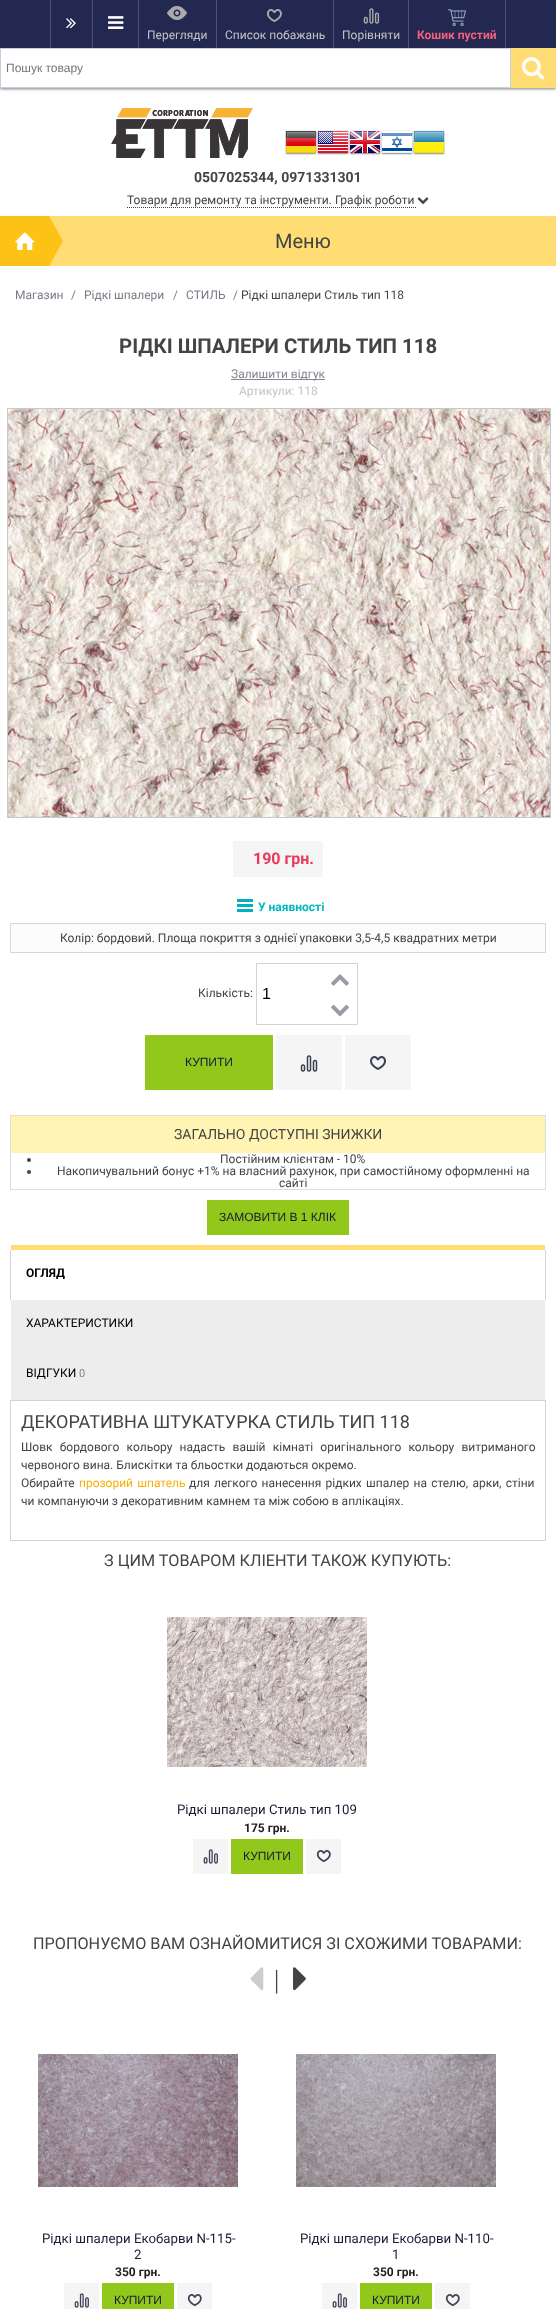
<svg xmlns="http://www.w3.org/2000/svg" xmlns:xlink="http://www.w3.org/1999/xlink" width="556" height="2309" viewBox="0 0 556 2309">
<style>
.cls-1{font:12px Roboto;fill:#c4c4c4}
.cls-2{font:bold 12px Roboto;fill:#f2607f}
.cls-3{font:12px Liberation Sans;fill:#757575}
.cls-4{font:bold 14px Roboto;fill:#444444}
.cls-5{font:12px Roboto;fill:#444444}
.cls-6{font:20px Roboto;fill:#444444}
.cls-7{font:12px Roboto;fill:#787b85}
.cls-8{font:bold 20.4px Roboto;fill:#444444}
.cls-9{font:12px Roboto;fill:#83868f}
.cls-10{font:bold 16px Roboto;fill:#e8385c}
.cls-11{font:bold 12px Roboto;fill:#01b7bb}
.cls-12{font:16px Liberation Sans;fill:#000000}
.cls-13{font:12px Liberation Sans;fill:#191c36}
.cls-14{font:14px Roboto;fill:#444444}
.cls-15{font:bold 12px Roboto;fill:#000000}
.cls-16{font:12px Roboto;fill:#000000}
.cls-17{font:11px Roboto;fill:#818289}
.cls-18{font:18px Roboto;fill:#444444}
.cls-19{font:12px Roboto;fill:#fbae08}
.cls-20{font:16.2px Roboto;fill:#444444}
.cls-21{font:13.25px Roboto;fill:#191c36}
.cls-22{font:bold 12px Roboto;fill:#1d1d1d}
.cls-23{font:26px Liberation Serif;fill:#444444}
</style>
<defs>
<clipPath id="clip1"><rect x="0" y="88" width="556" height="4"/></clipPath>
</defs>
<rect width="100%" height="100%" fill="#ffffff"/>
<g clip-path="url(#clip1)">
<rect fill="#000000" fill-opacity="0.5" filter="blur(1.5px)" x="0" y="49" width="556" height="40"/>
</g>
<rect fill="#22284f" x="0" y="0" width="556" height="48"/>
<rect fill="#4d5070" x="50" y="0" width="1" height="48"/>
<image xlink:href="image0.png" x="66" y="18" width="10" height="11"/>
<rect fill="#4d5070" x="92" y="0" width="1" height="48"/>
<image xlink:href="image1.png" x="108" y="16" width="16" height="13"/>
<rect fill="#4d5070" x="138" y="0" width="1" height="48"/>
<image xlink:href="image2.png" x="167" y="6" width="20" height="14"/>
<rect fill="#4d5070" x="216" y="0" width="1" height="48"/>
<image xlink:href="image3.png" x="266" y="9" width="16" height="13"/>
<rect fill="#4d5070" x="333" y="0" width="1" height="48"/>
<image xlink:href="image4.png" x="363" y="8" width="17" height="16"/>
<rect fill="#4d5070" x="505" y="0" width="1" height="48"/>
<rect fill="#4d5070" x="408" y="0" width="1" height="48"/>
<image xlink:href="image5.png" x="448" y="9" width="18" height="18"/>
<rect fill="none" stroke="#cacde0" x="0.5" y="48.5" width="510" height="39"/>
<rect fill="#ffdd74" x="511" y="48" width="45" height="40"/>
<image xlink:href="image6.png" x="522" y="57" width="23" height="23"/>
<image xlink:href="image7.png" x="111" y="108" width="142" height="50"/>
<image xlink:href="image8.png" x="285" y="130" width="32" height="25"/>
<image xlink:href="image9.png" x="317" y="130" width="32" height="25"/>
<image xlink:href="image10.png" x="349" y="130" width="32" height="25"/>
<image xlink:href="image11.png" x="381" y="130" width="32" height="25"/>
<image xlink:href="image12.png" x="413" y="130" width="32" height="25"/>
<path fill="none" stroke="#444444" stroke-dasharray="1 1" d="M127 207.5H417"/>
<image xlink:href="image13.png" x="417" y="197" width="12" height="8"/>
<rect fill="#ffdd74" x="50" y="216" width="506" height="50"/>
<rect fill="#fcc316" x="0" y="216" width="50" height="50"/>
<image xlink:href="image14.png" x="15" y="232" width="20" height="18"/>
<path fill="#fcc316" d="M49 266V216L63 241Z"/>
<rect fill="#83868f" x="231" y="379" width="94" height="1"/>
<rect fill="none" stroke="#c7c8cc" x="7.5" y="408.5" width="543" height="409"/>
<image xlink:href="image15.png" x="8" y="409" width="542" height="408"/>
<rect fill="#f5f5f5" x="233" y="841" width="90" height="36"/>
<image xlink:href="image16.png" x="237" y="899" width="16" height="13"/>
<rect fill="#fbfbfb" stroke="#d7d7d7" x="10.5" y="923.5" width="535" height="29"/>
<rect fill="none" stroke="#d5d4d4" x="256.5" y="963.5" width="101" height="61"/>
<image xlink:href="image17.png" x="331" y="974" width="18" height="12"/>
<image xlink:href="image18.png" x="331" y="1004" width="18" height="13"/>
<rect fill="#91c81b" x="145" y="1035" width="128" height="55"/>
<rect fill="#f5f5f5" x="276" y="1035" width="66" height="55"/>
<image xlink:href="image19.png" x="300" y="1055" width="18" height="17"/>
<rect fill="#f5f5f5" x="345" y="1035" width="66" height="55"/>
<image xlink:href="image20.png" x="370" y="1056" width="16" height="14"/>
<rect fill="none" stroke="#dddddd" x="10.5" y="1115.5" width="535" height="74"/>
<rect fill="#fff4b4" x="11" y="1116" width="534" height="37"/>
<circle fill="#444444" cx="29" cy="1160" r="2"/>
<circle fill="#444444" cx="29" cy="1172" r="2"/>
<rect fill="#91c81b" x="207" y="1200" width="142" height="35"/>
<rect fill="#d5d4d4" x="545" y="1250" width="1" height="50"/>
<rect fill="#d5d4d4" x="10" y="1250" width="1" height="50"/>
<rect fill="#ffdd74" x="11" y="1245" width="534" height="5"/>
<rect fill="#ededed" x="11" y="1300" width="534" height="100"/>
<rect fill="none" stroke="#d5d4d4" x="10.5" y="1400.5" width="535" height="140"/>
<image xlink:href="image21.png" x="167" y="1617" width="200" height="150"/>
<rect fill="#f5f5f5" x="193" y="1839" width="35" height="35"/>
<image xlink:href="image22.png" x="203" y="1849" width="15" height="15"/>
<rect fill="#91c81b" x="231" y="1839" width="72" height="35"/>
<rect fill="#f5f5f5" x="306" y="1839" width="35" height="35"/>
<image xlink:href="image23.png" x="316" y="1850" width="15" height="13"/>
<image xlink:href="image24.png" x="250" y="1967" width="14" height="23"/>
<image xlink:href="image25.png" x="293" y="1967" width="13" height="24"/>
<image xlink:href="image26.png" x="38" y="2054" width="200" height="133"/>
<rect fill="#f5f5f5" x="64" y="2283" width="35" height="26"/>
<image xlink:href="image22.png" x="74" y="2293" width="15" height="15"/>
<rect fill="#91c81b" x="102" y="2283" width="72" height="26"/>
<rect fill="#f5f5f5" x="177" y="2283" width="35" height="26"/>
<image xlink:href="image23.png" x="187" y="2294" width="15" height="13"/>
<image xlink:href="image27.png" x="296" y="2054" width="200" height="133"/>
<rect fill="#f5f5f5" x="322" y="2283" width="35" height="26"/>
<image xlink:href="image22.png" x="332" y="2293" width="15" height="15"/>
<rect fill="#91c81b" x="360" y="2283" width="72" height="26"/>
<rect fill="#f5f5f5" x="435" y="2283" width="35" height="26"/>
<image xlink:href="image23.png" x="445" y="2294" width="15" height="13"/>
<text class="cls-1" x="147" y="39">Перегляди</text>
<text class="cls-1" x="225" y="39">Список побажань</text>
<text class="cls-1" x="342" y="39">Порівняти</text>
<text class="cls-2" x="417" y="39">Кошик пустий</text>
<text class="cls-3" x="6" y="72">Пошук товару</text>
<text class="cls-4" x="194" y="182">0507025344, 0971331301</text>
<text class="cls-5" x="127" y="204">Товари для ремонту та інструменти. Графік роботи</text>
<text class="cls-6" x="275" y="248">Меню</text>
<text class="cls-7" x="15" y="299">Магазин</text>
<text class="cls-7" x="71" y="299">/</text>
<text class="cls-7" x="84" y="299">Рідкі шпалери</text>
<text class="cls-7" x="173" y="299">/</text>
<text class="cls-7" x="186" y="299">СТИЛЬ</text>
<text class="cls-7" x="233" y="299">/</text>
<text class="cls-5" x="241" y="299">Рідкі шпалери Стиль тип 118</text>
<text class="cls-8" x="119" y="353">РІДКІ ШПАЛЕРИ СТИЛЬ ТИП 118</text>
<text class="cls-9" x="231" y="378">Залишити відгук</text>
<text class="cls-1" x="239" y="395">Артикули: 118</text>
<text class="cls-10" x="253" y="864">190 грн.</text>
<text class="cls-11" x="258" y="911">У наявності</text>
<text class="cls-5" x="60" y="942">Колір: бордовий. Площа покриття з однієї упаковки 3,5-4,5 квадратних метри</text>
<text class="cls-5" x="198" y="997">Кількість:</text>
<text class="cls-12" x="262" y="999">1</text>
<text class="cls-13" x="185" y="1066">КУПИТИ</text>
<text class="cls-14" x="174" y="1139">ЗАГАЛЬНО ДОСТУПНІ ЗНИЖКИ</text>
<text class="cls-5" x="220" y="1163">Постійним клієнтам - 10%</text>
<text class="cls-5" x="57" y="1175">Накопичувальний бонус +1% на власний рахунок, при самостійному оформленні на</text>
<text class="cls-5" x="279" y="1187">сайті</text>
<text class="cls-13" x="219" y="1221">ЗАМОВИТИ В 1 КЛІК</text>
<text class="cls-15" x="26" y="1277">ОГЛЯД</text>
<text class="cls-16" x="26" y="1327">ХАРАКТЕРИСТИКИ</text>
<text class="cls-16" x="26" y="1377">ВІДГУКИ</text>
<text class="cls-17" x="79" y="1377">0</text>
<text class="cls-18" x="21" y="1428">ДЕКОРАТИВНА ШТУКАТУРКА СТИЛЬ ТИП 118</text>
<text class="cls-5"><tspan x="21" y="1451" word-spacing="4.25">Шовк бордового кольору надасть вашій кімнаті оригінального кольору витриманого</tspan><tspan x="21" y="1469">червоного вина. Блискітки та бльостки додаються окремо.</tspan><tspan x="21" y="1487">Обирайте</tspan></text>
<text class="cls-19" x="79" y="1487" word-spacing="1.25">прозорий шпатель</text>
<text class="cls-5" x="189" y="1487" word-spacing="1.25">для легкого нанесення рідких шпалер на стелю, арки, стіни</text>
<text class="cls-5" x="21" y="1505">чи компануючи з декоративним камнем та між собою в аплікаціях.</text>
<text class="cls-20" x="104" y="1566">З ЦИМ ТОВАРОМ КЛІЕНТИ ТАКОЖ КУПУЮТЬ:</text>
<text class="cls-21" x="177" y="1814">Рідкі шпалери Стиль тип 109</text>
<text class="cls-22" x="244" y="1832">175 грн.</text>
<text class="cls-13" x="243" y="1860">КУПИТИ</text>
<text class="cls-20" x="33" y="1949">ПРОПОНУЄМО ВАМ ОЗНАЙОМИТИСЯ ЗІ СХОЖИМИ ТОВАРАМИ:</text>
<text class="cls-23" x="274" y="1988">|</text>
<text class="cls-21" x="42" y="2243">Рідкі шпалери Екобарви N-115-</text>
<text class="cls-21" x="134" y="2259">2</text>
<text class="cls-22" x="115" y="2276">350 грн.</text>
<text class="cls-13" x="114" y="2304">КУПИТИ</text>
<text class="cls-21" x="300" y="2243">Рідкі шпалери Екобарви N-110-</text>
<text class="cls-21" x="392" y="2259">1</text>
<text class="cls-22" x="373" y="2276">350 грн.</text>
<text class="cls-13" x="372" y="2304">КУПИТИ</text>
</svg>
